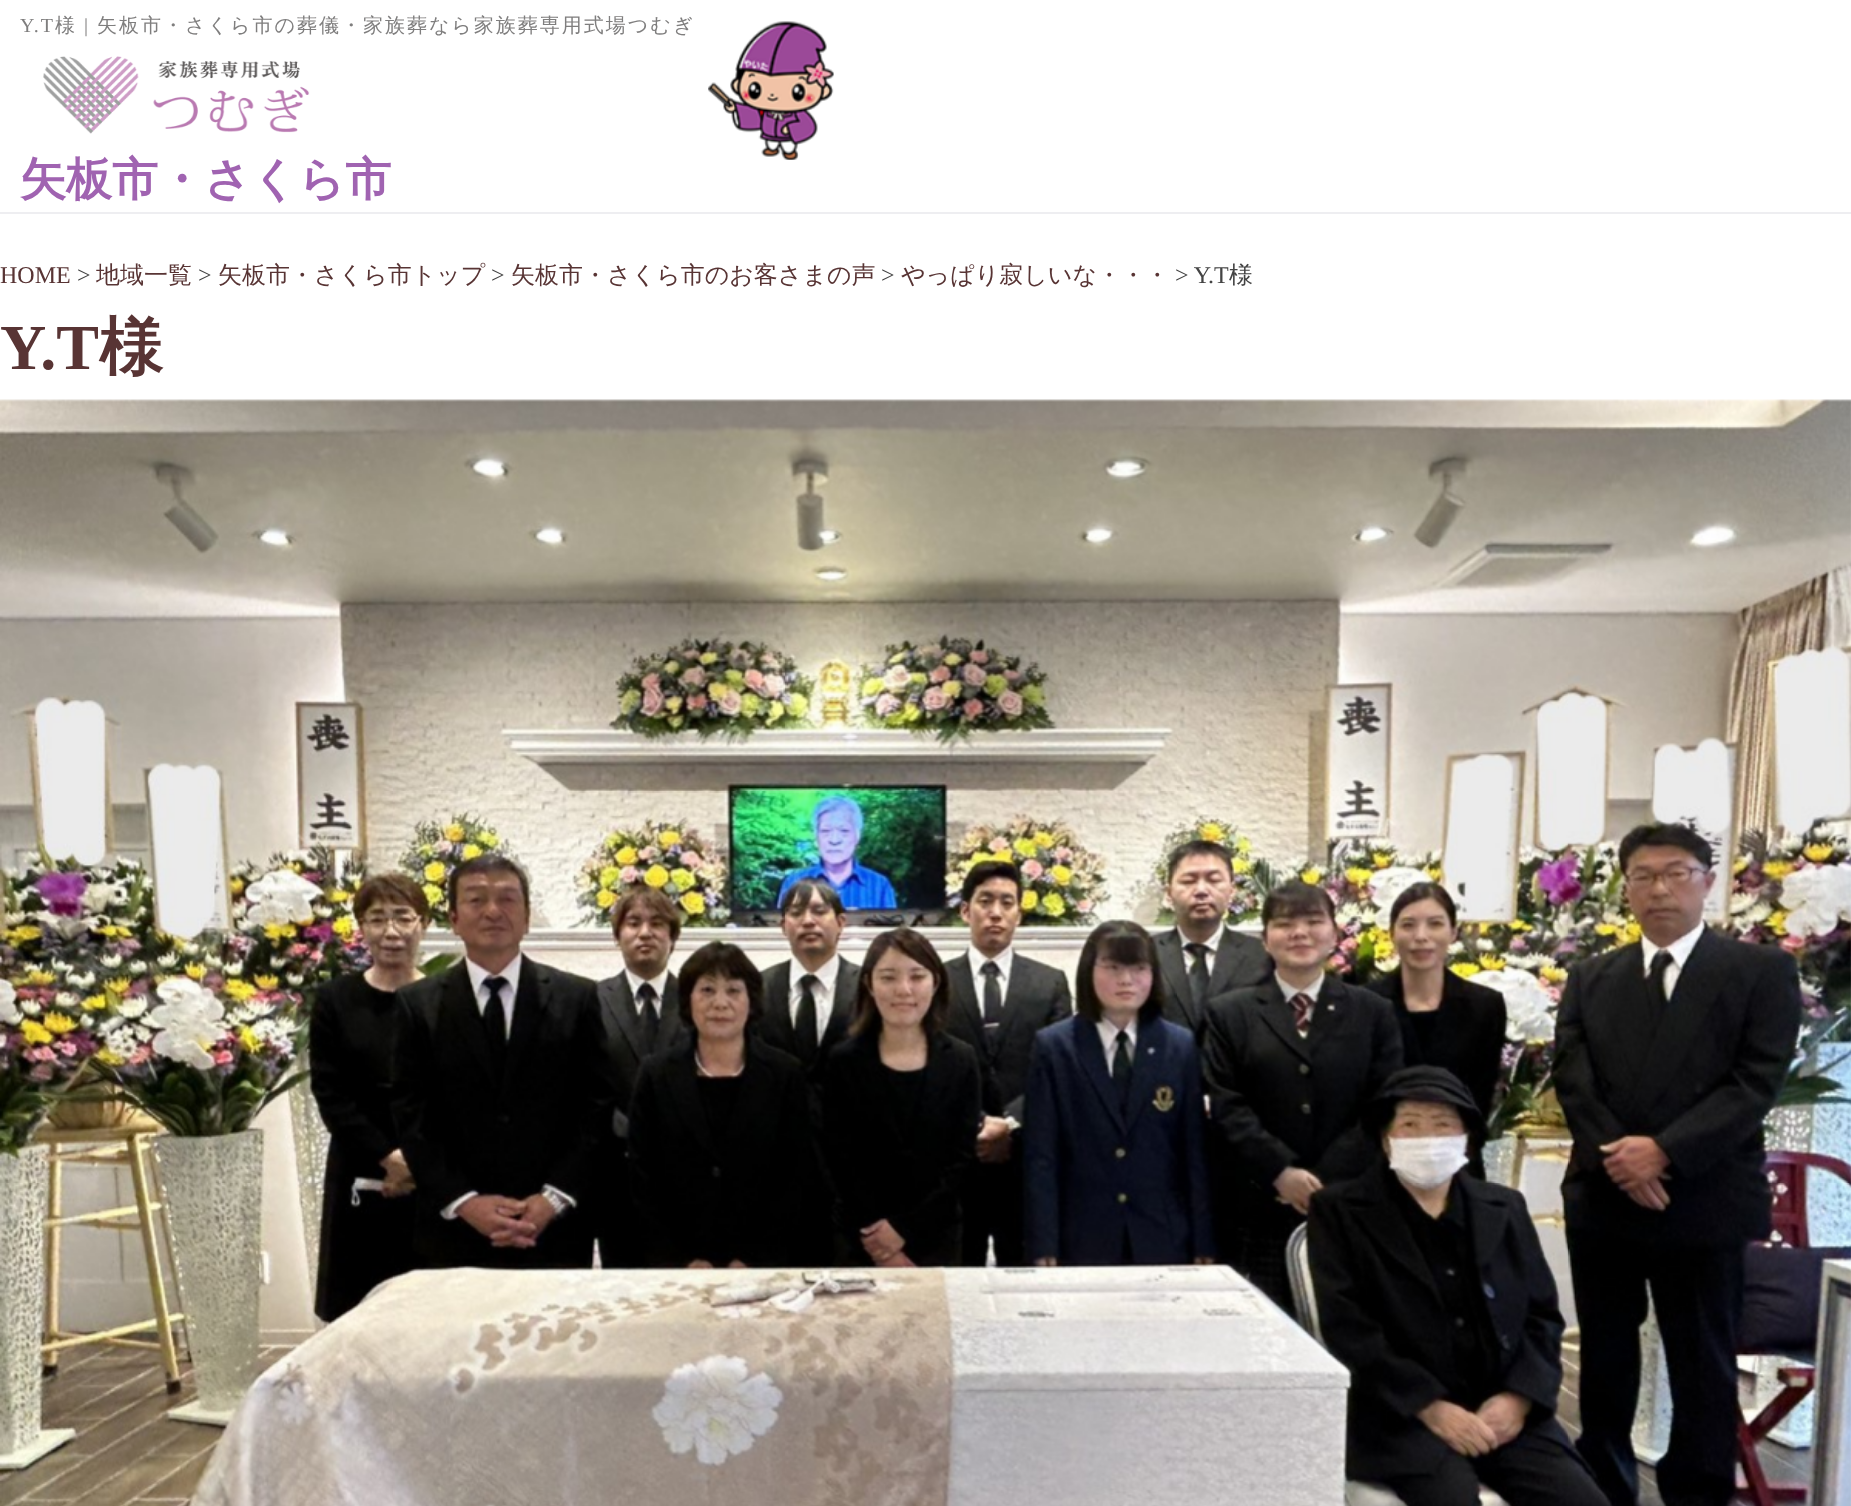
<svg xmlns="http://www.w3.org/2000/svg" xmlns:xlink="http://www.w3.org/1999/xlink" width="1851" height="1506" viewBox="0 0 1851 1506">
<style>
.cls-1{font:20px Liberation Serif;letter-spacing:2px;fill:#7f7e7e}
.cls-2{font:500 20px WenQuanYi Zen Hei;letter-spacing:2px;fill:#7f7e7e}
.cls-3{font:bold 46px WenQuanYi Zen Hei;fill:#a063b1}
.cls-4{font:24px Liberation Serif;fill:#583434}
.cls-5{font:24px Liberation Serif;fill:#444444}
.cls-6{font:500 24px WenQuanYi Zen Hei;fill:#583434}
.cls-7{font:500 24px WenQuanYi Zen Hei;fill:#444444}
.cls-8{font:bold 64px Liberation Serif;fill:#583434}
.cls-9{font:bold 64px WenQuanYi Zen Hei;fill:#583434}
</style>
<rect width="100%" height="100%" fill="#ffffff"/>
<rect fill="#eeeef1" x="0" y="212" width="1851" height="2"/>
<image xlink:href="image0.png" x="708" y="21" width="126" height="139"/>
<image xlink:href="image1.png" x="43" y="56" width="267" height="78"/>
<image xlink:href="image2.png" x="0" y="399" width="1851" height="1107"/>
<text class="cls-1" x="20" y="32">Y.T</text>
<text class="cls-2" x="55" y="32">様</text>
<text class="cls-1" x="84" y="32">|</text>
<text class="cls-2" x="97" y="32">矢板市・さくら市の葬儀・家族葬なら家族葬専用式場つむぎ</text>
<text class="cls-3" x="20" y="195">矢板市・さくら市</text>
<text class="cls-4" x="0" y="283">HOME</text>
<text class="cls-5" x="77" y="283">&gt;</text>
<text class="cls-6" x="96" y="283">地域一覧</text>
<text class="cls-5" x="198" y="283">&gt;</text>
<text class="cls-6" x="218" y="283">矢板市・さくら市トップ</text>
<text class="cls-5" x="491" y="283">&gt;</text>
<text class="cls-6" x="511" y="283">矢板市・さくら市のお客さまの声</text>
<text class="cls-5" x="881" y="283">&gt;</text>
<text class="cls-6" x="901" y="283">やっぱり寂しいな・・・</text>
<text class="cls-5" x="1175" y="283">&gt; Y.T</text>
<text class="cls-7" x="1229" y="283">様</text>
<text class="cls-8" x="0" y="369">Y.T</text>
<text class="cls-9" x="99" y="369">様</text>
</svg>
